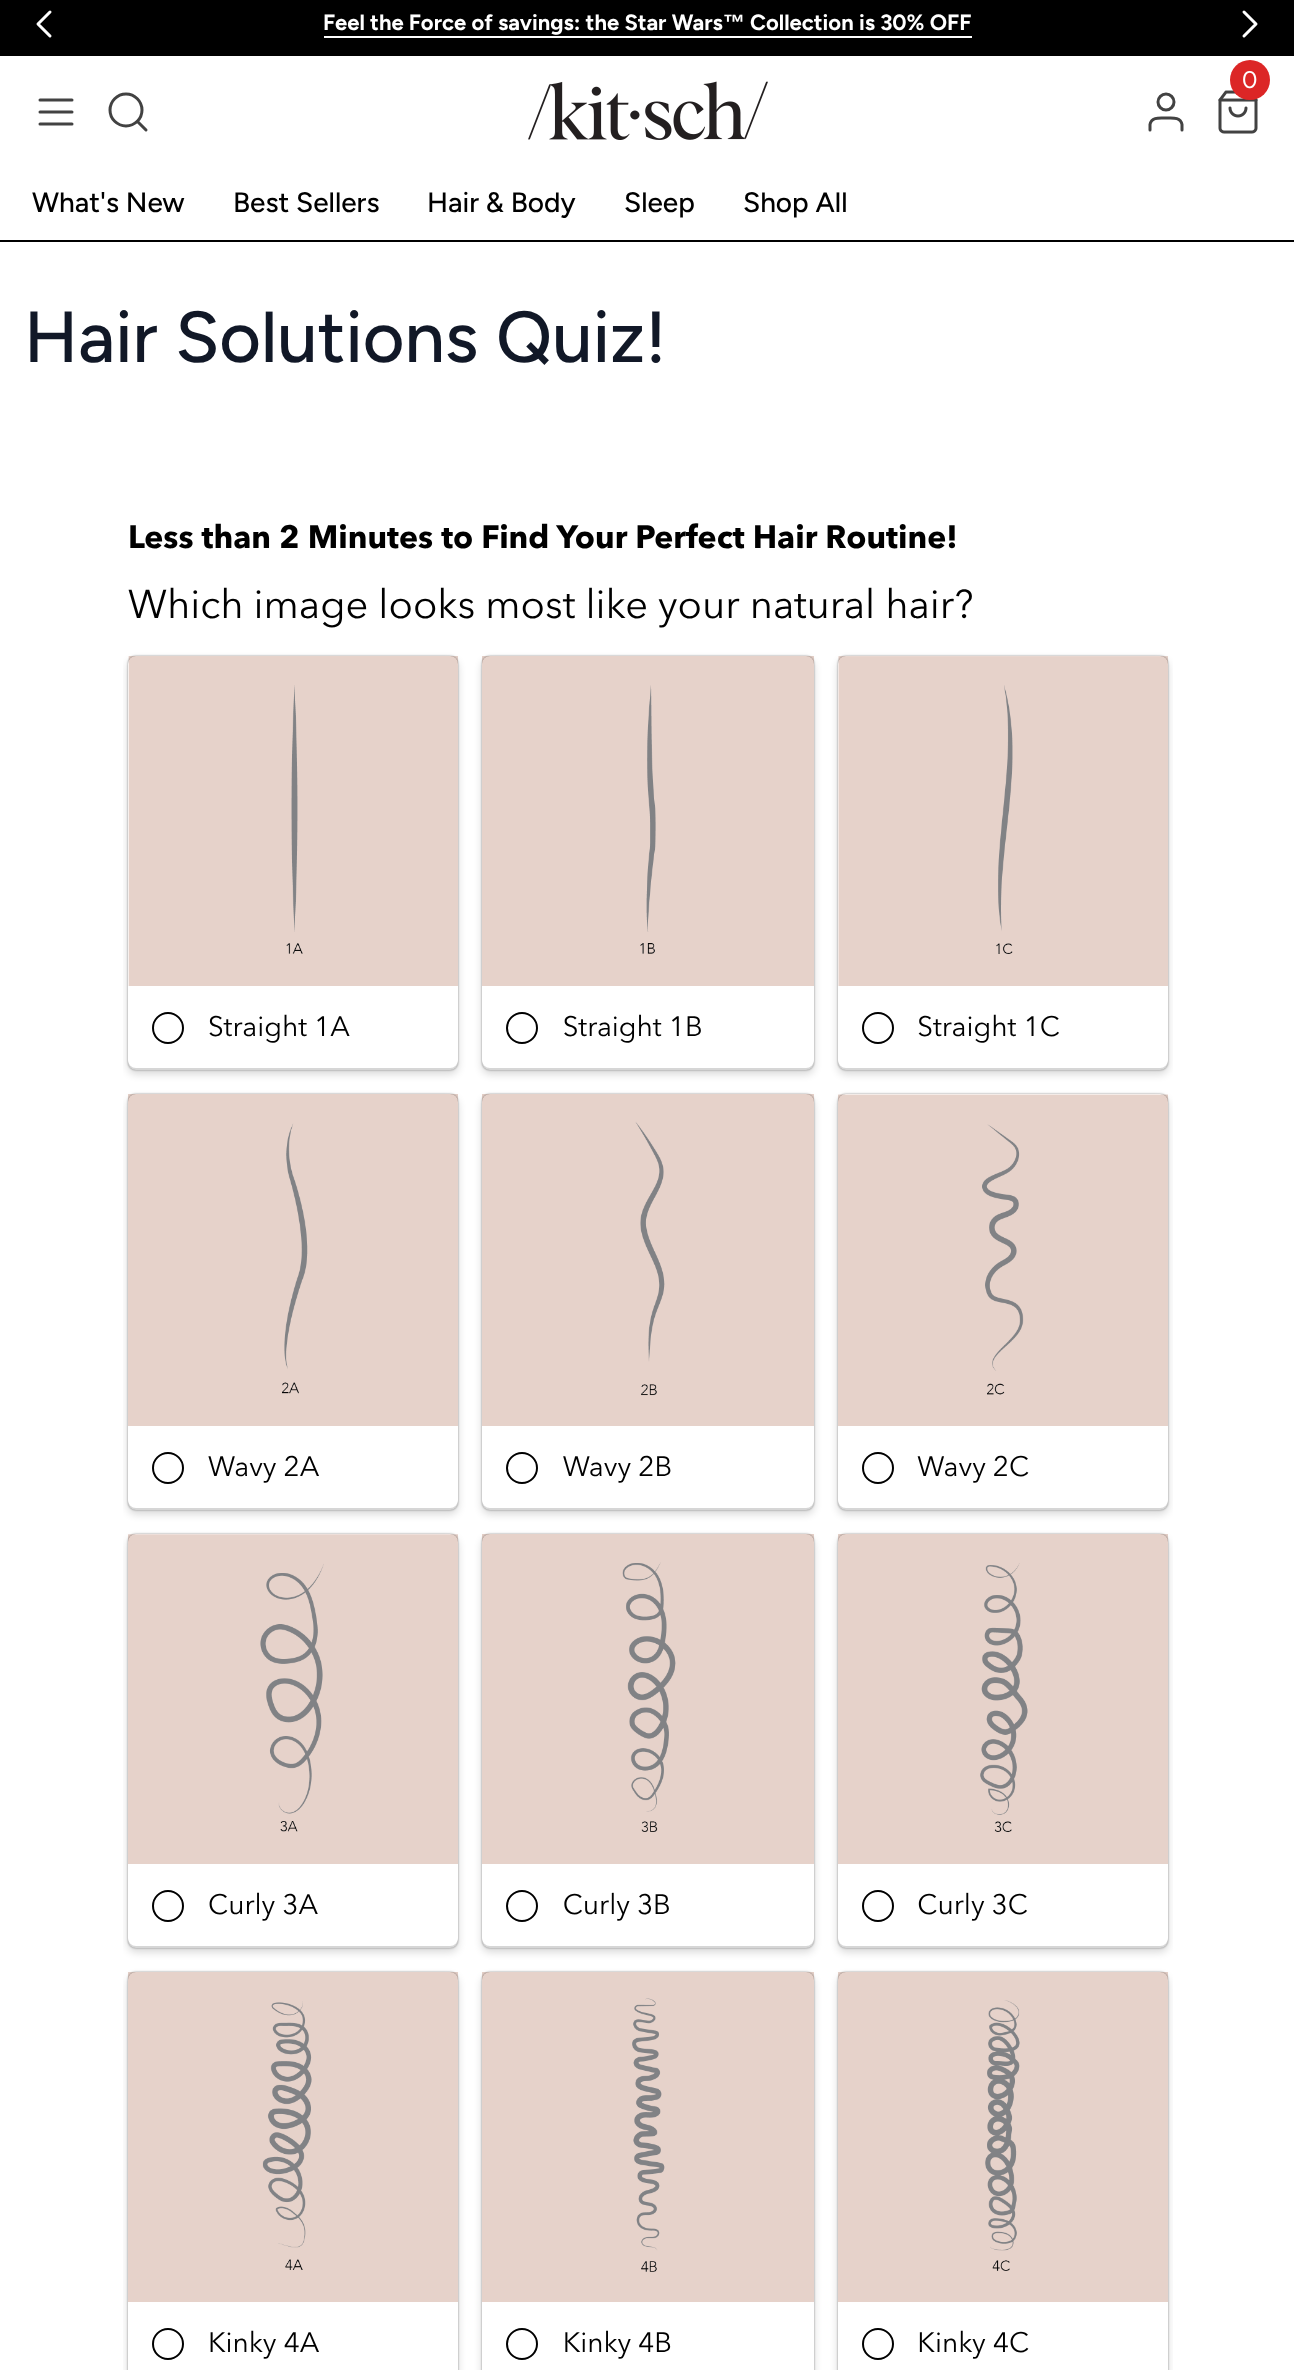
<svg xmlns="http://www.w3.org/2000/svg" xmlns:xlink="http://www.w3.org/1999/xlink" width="1294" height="2370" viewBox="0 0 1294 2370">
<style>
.cls-1{font:bold 22px Figtree;fill:#ffffff}
.cls-2{font:bold 22px Liberation Sans;fill:#ffffff}
.cls-3{font:24px Figtree;fill:#ffffff}
.cls-4{font:500 28px Figtree;fill:#000000}
.cls-5{font:500 72px Figtree;fill:#111827}
</style>
<rect width="100%" height="100%" fill="#ffffff"/>
<rect fill="#000000" x="0" y="0" width="1294" height="56"/>
<path fill="none" stroke="#ffffff" stroke-width="3" stroke-linecap="round" stroke-linejoin="round" d="M50 36L38 24L50 12"/>
<rect fill="#ffffff" x="324" y="36" width="648" height="2"/>
<path fill="none" stroke="#ffffff" stroke-width="3" stroke-linecap="round" stroke-linejoin="round" d="M1244 36L1256 24L1244 12"/>
<rect fill="#000000" x="0" y="240" width="1294" height="2"/>
<path fill="none" stroke="#424242" stroke-width="3" stroke-linecap="round" stroke-linejoin="round" d="M40 100H72M40 112H72M40 124H72"/>
<circle fill="none" stroke="#424242" stroke-width="3" cx="126" cy="110" r="16"/>
<path fill="none" stroke="#424242" stroke-width="3" stroke-linecap="round" stroke-linejoin="round" d="M146 130L137.5 121.5"/>
<image xlink:href="image0.png" x="528" y="81" width="240" height="59"/>
<image xlink:href="image1.png" x="1218" y="90" width="40" height="44"/>
<circle fill="#dc2626" cx="1250" cy="80" r="20"/>
<path fill="none" stroke="#424242" stroke-width="3" stroke-linecap="round" stroke-linejoin="round" d="M1182 130V124.5C1180.5 116.5 1172 118 1166 118C1160 118 1151.5 116.5 1150 124.5V130"/>
<circle fill="none" stroke="#424242" stroke-width="3" cx="1166" cy="102" r="8"/>
<image xlink:href="image2.png" x="123" y="523" width="1050" height="1847"/>
<text class="cls-1" x="323" y="30">Feel the Force of savings: the Star Wars</text>
<text class="cls-2" x="723" y="30">™</text>
<text class="cls-1" x="750" y="30">Collection is 30% OFF</text>
<text class="cls-3" x="1242" y="88">0</text>
<text class="cls-4" x="32" y="212">What's New</text>
<text class="cls-4" x="233" y="212">Best Sellers</text>
<text class="cls-4" x="427" y="212">Hair &amp; Body</text>
<text class="cls-4" x="624" y="212">Sleep</text>
<text class="cls-4" x="743" y="212">Shop All</text>
<text class="cls-5" x="24" y="362">Hair Solutions Quiz!</text>
</svg>
